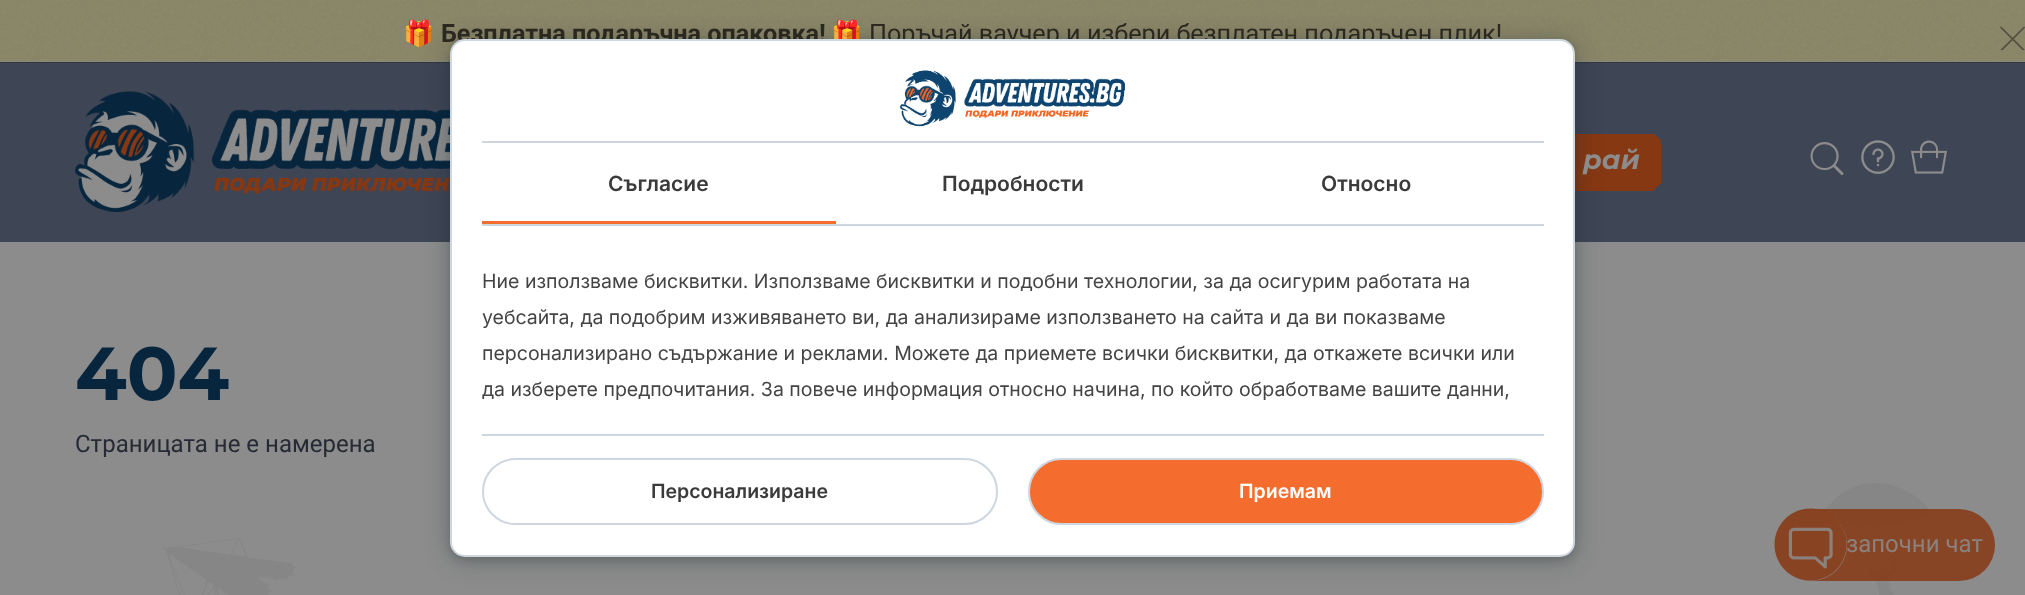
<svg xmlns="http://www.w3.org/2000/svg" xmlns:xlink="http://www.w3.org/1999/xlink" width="2025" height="595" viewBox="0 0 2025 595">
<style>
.cls-1{font:25.2px Noto Color Emoji;fill:#2a281f}
.cls-2{font:bold 25.2px Roboto;fill:#2a281f}
.cls-3{font:25.2px Roboto;fill:#2a281f}
.cls-4{font:25.2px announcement;fill:#53513f}
.cls-5{font:italic bold 27px Montserrat;fill:#8c8c8c}
.cls-6{font:bold 75px Montserrat;fill:#08253e}
.cls-7{font:24px Roboto;fill:#262a34}
.cls-8{font:600 21px Inter;fill:#3b3b3b}
.cls-9{font:19.5px Inter;fill:#444444}
.cls-10{font:600 19.5px Inter;fill:#3b3b3b}
.cls-11{font:600 19.5px Inter;fill:#ffffff}
.cls-12{font:24px Roboto;fill:#8b817d}
</style>
<defs>
<clipPath id="clip1"><rect x="0" y="12" width="2025" height="38"/></clipPath>
<clipPath id="clip2"><rect x="482" y="240" width="1062" height="179"/></clipPath>
</defs>
<rect width="100%" height="100%" fill="#8c8c8c"/>
<rect fill="#323843" x="0" y="62" width="2025" height="1"/>
<rect fill="#8c886a" x="0" y="0" width="2025" height="62"/>
<image xlink:href="image0.png" x="0" y="0" width="2025" height="61"/>
<rect fill="#8c8c8c" fill-opacity="0.2" x="0" y="59" width="2025" height="3"/>
<rect fill="#3e4554" x="0" y="63" width="2025" height="179"/>
<image xlink:href="image1.png" x="75" y="91" width="375" height="121"/>
<path fill="#863813" d="M1654 134L1661 140V183L1653 191H1445L1438 183V140L1444 134Z"/>
<image xlink:href="image2.png" x="1810" y="142" width="34" height="33"/>
<image xlink:href="image3.png" x="1861" y="140" width="34" height="34"/>
<image xlink:href="image4.png" x="1911" y="140" width="36" height="34"/>
<image xlink:href="image5.png" x="162" y="483" width="1770" height="112"/>
<rect fill="#0e1e25" fill-opacity="0.32" filter="blur(12px)" x="450" y="42" width="1125" height="518" rx="15"/>
<rect fill="#0e1e25" fill-opacity="0.12" filter="blur(3px)" x="450" y="42" width="1125" height="518" rx="15"/>
<rect fill="#863813" fill-opacity="0.85" x="1775" y="509" width="220" height="72" rx="36"/>
<circle fill="#8c8c8c" fill-opacity="0.85" cx="1811" cy="545" r="36"/>
<image xlink:href="image7.png" x="1774" y="508" width="73" height="73"/>
<text class="cls-1" x="403" y="42">🎁</text>
<text class="cls-2" x="441" y="42">Безплатна подаръчна опаковка!</text>
<text class="cls-1" x="831" y="42">🎁</text>
<text class="cls-3" x="869" y="42">Поръчай ваучер и избери безплатен подаръчен плик!</text>
<g clip-path="url(#clip1)">
<text class="cls-4" x="2000" y="50">c</text>
</g>
<text class="cls-5" x="1583" y="169">рай</text>
<text class="cls-6" x="75" y="400">404</text>
<text class="cls-7" x="75" y="452">Страницата не е намерена</text>
<rect fill="#ffffff" stroke="#ced6e0" stroke-width="2" x="451" y="40" width="1123" height="516" rx="14"/>
<image xlink:href="image6.png" x="900" y="70" width="225" height="57"/>
<rect fill="#ced6e0" x="482" y="141" width="1062" height="2"/>
<rect fill="#ced6e0" x="482" y="224" width="1062" height="2"/>
<text class="cls-8" x="608" y="191">Съгласие</text>
<rect fill="#f46d2e" x="482" y="221" width="354" height="3"/>
<text class="cls-8" x="942" y="191">Подробности</text>
<text class="cls-8" x="1321" y="191">Относно</text>
<text class="cls-9"><tspan x="482" y="288">Ние използваме бисквитки. Използваме бисквитки и подобни технологии, за да осигурим работата на</tspan><tspan x="482" y="324">уебсайта, да подобрим изживяването ви, да анализираме използването на сайта и да ви показваме</tspan><tspan x="482" y="360">персонализирано съдържание и реклами. Можете да приемете всички бисквитки, да откажете всички или</tspan></text>
<g clip-path="url(#clip2)">
<text class="cls-9" x="482" y="396">да изберете предпочитания. За повече информация относно начина, по който обработваме вашите данни,</text>
</g>
<rect fill="#ced6e0" x="482" y="434" width="1062" height="2"/>
<rect fill="none" stroke="#ced6e0" stroke-width="2" x="483" y="459" width="514" height="65" rx="32.5"/>
<text class="cls-10" x="651" y="498">Персонализиране</text>
<rect fill="#f46d2e" stroke="#ced6e0" stroke-width="2" x="1029" y="459" width="514" height="65" rx="32.5"/>
<text class="cls-11" x="1239" y="498">Приемам</text>
<text class="cls-12" x="1846" y="552">започни чат</text>
</svg>
